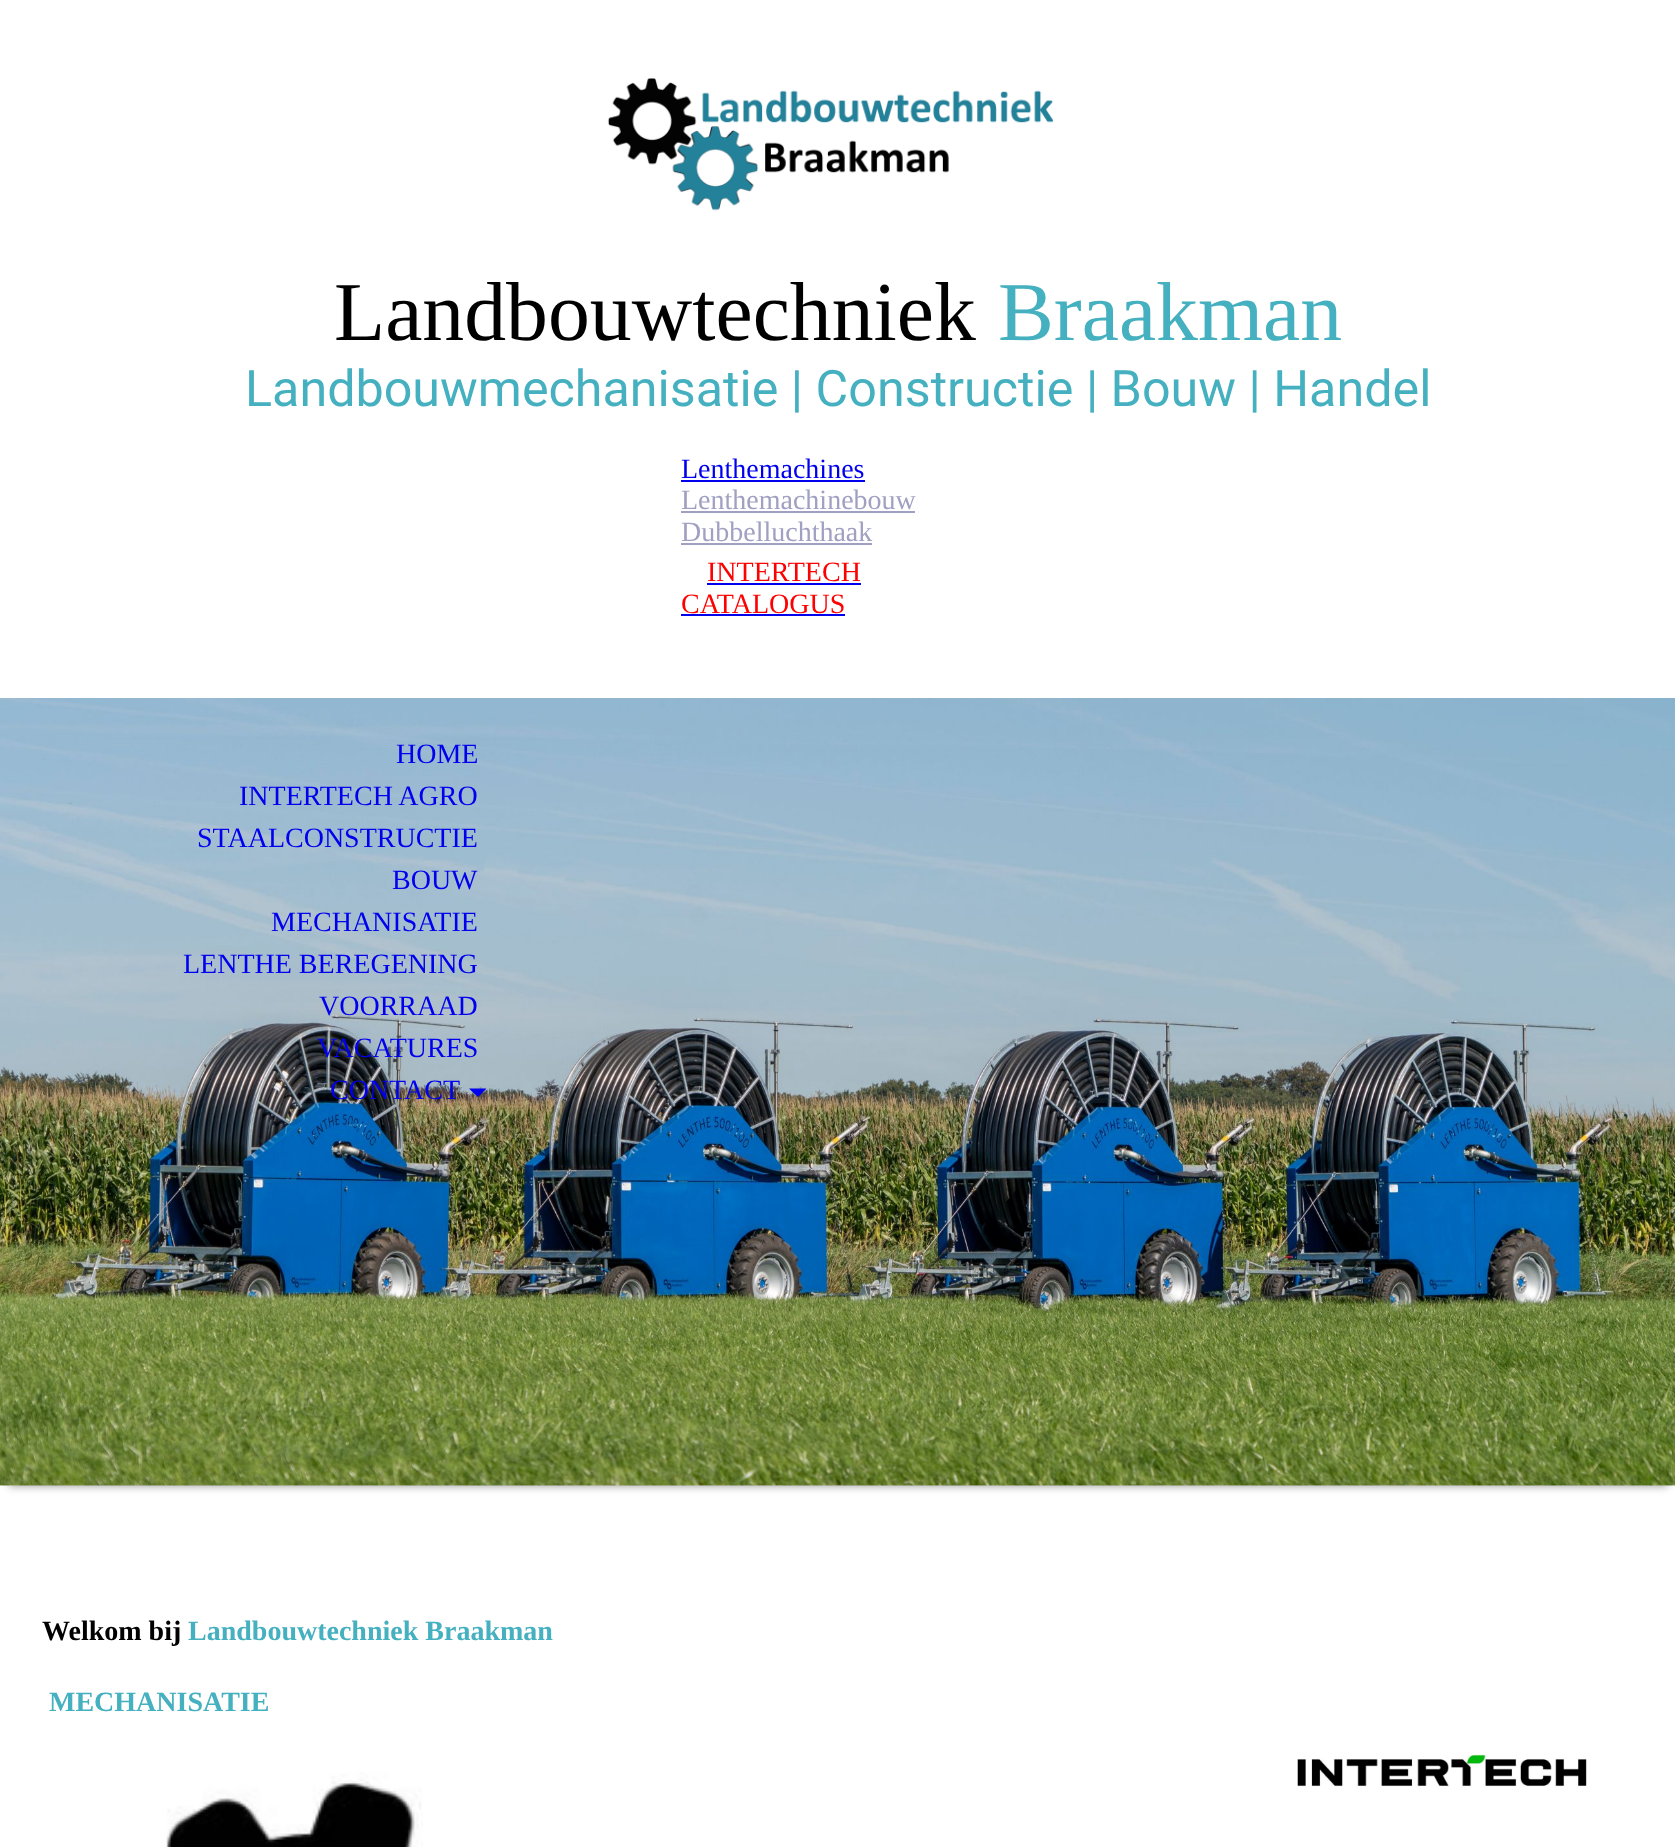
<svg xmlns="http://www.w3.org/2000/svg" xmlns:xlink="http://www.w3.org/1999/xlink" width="1675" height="1847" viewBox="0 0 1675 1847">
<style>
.cls-1{font:83.75px Liberation Serif;fill:#000000}
.cls-2{font:83.75px Liberation Serif;fill:#45b0bf}
.cls-3{font:50.25px Roboto;fill:#45b0bf}
.cls-4{font:28px Liberation Serif;fill:#0000ee}
.cls-5{font:28px Liberation Serif;fill:#a0a0c2}
.cls-6{font:28px Liberation Serif;fill:#ff0000}
.cls-7{font:bold 28px Liberation Serif;fill:#000000}
.cls-8{font:bold 28px Liberation Serif;fill:#45b0bf}
</style>
<rect width="100%" height="100%" fill="#ffffff"/>
<image xlink:href="image0.png" x="607" y="78" width="447" height="133"/>
<rect fill="#0000ee" x="681" y="480" width="184" height="2"/>
<rect fill="#a0a0c2" x="681" y="511" width="234" height="2"/>
<rect fill="#a0a0c2" x="681" y="543" width="191" height="2"/>
<rect fill="#0000ee" x="707" y="583" width="154" height="2"/>
<rect fill="#0000ee" x="681" y="614" width="164" height="2"/>
<rect fill="#000000" fill-opacity="0.4" filter="blur(4.5px)" x="9" y="716" width="1659" height="770"/>
<image xlink:href="image1.png" x="0" y="698" width="1675" height="788"/>
<path fill="#0000ee" d="M469 1088.5H486.5L478 1097Z"/>
<image xlink:href="image2.png" x="166" y="1772" width="257" height="75"/>
<image xlink:href="image3.png" x="1297" y="1754" width="290" height="33"/>
<text class="cls-1" x="334" y="340">Landbouwtechniek</text>
<text class="cls-2" x="998" y="340">Braakman</text>
<text class="cls-3" x="245" y="406">Landbouwmechanisatie | Constructie | Bouw | Handel</text>
<text class="cls-4" x="681" y="478">Lenthemachines</text>
<text class="cls-5"><tspan x="681" y="509">Lenthemachinebouw</tspan><tspan x="681" y="541">Dubbelluchthaak</tspan></text>
<text class="cls-6" x="707" y="581">INTERTECH</text>
<text class="cls-6" x="681" y="613">CATALOGUS</text>
<text class="cls-4" x="396" y="763">HOME</text>
<text class="cls-4" x="239" y="805">INTERTECH AGRO</text>
<text class="cls-4" x="197" y="847">STAALCONSTRUCTIE</text>
<text class="cls-4" x="392" y="889">BOUW</text>
<text class="cls-4" x="271" y="931">MECHANISATIE</text>
<text class="cls-4" x="183" y="973">LENTHE BEREGENING</text>
<text class="cls-4" x="319" y="1015">VOORRAAD</text>
<text class="cls-4" x="317" y="1057">VACATURES</text>
<text class="cls-4" x="330" y="1099">CONTACT</text>
<text class="cls-7" x="42" y="1640">Welkom bij</text>
<text class="cls-8" x="188" y="1640">Landbouwtechniek Braakman</text>
<text class="cls-8" x="49" y="1711">MECHANISATIE</text>
</svg>
